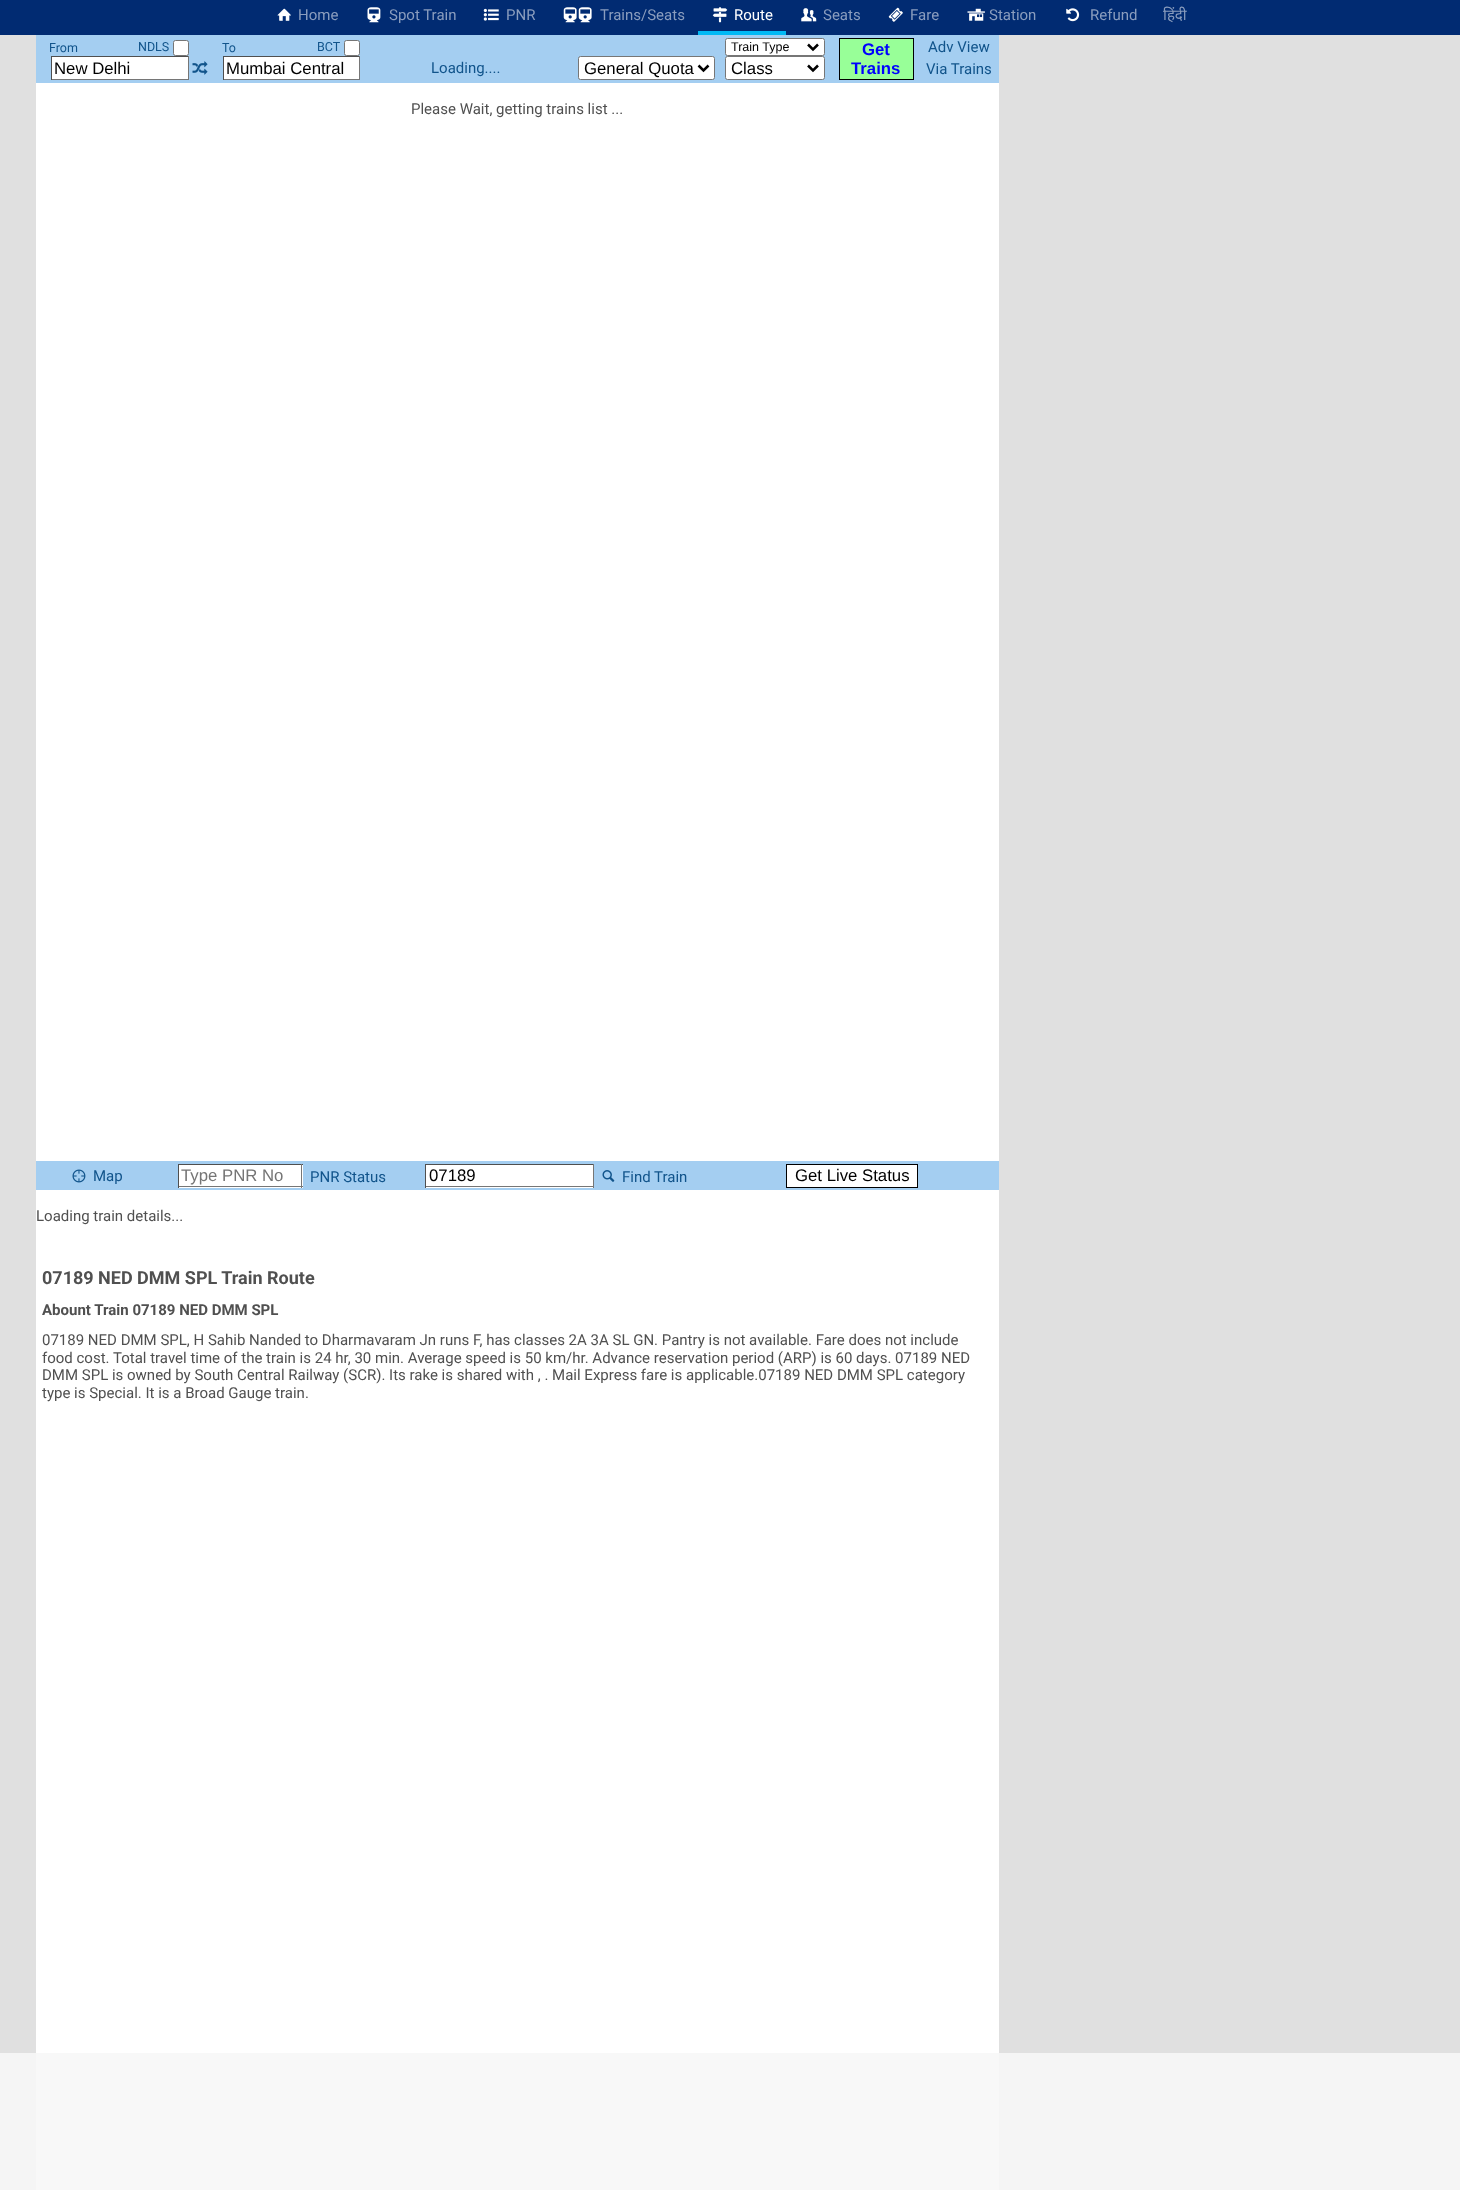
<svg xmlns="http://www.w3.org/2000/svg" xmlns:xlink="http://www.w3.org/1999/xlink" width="1460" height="2190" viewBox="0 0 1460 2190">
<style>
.cls-1{font:15px Roboto;fill:#8a9dbe}
.cls-2{font:15px Roboto;fill:#ffffff}
.cls-3{font:15px Noto Sans;fill:#8a9dbe}
.cls-4{font:12.5px Roboto;fill:#11548b}
.cls-5{font:12.5px Liberation Sans;fill:#000000}
.cls-6{font:bold 16.75px Liberation Sans;fill:#0000ff}
.cls-7{font:15px Roboto;fill:#11548b}
.cls-8{font:16.75px Liberation Sans;fill:#000000}
.cls-9{font:15px Roboto;fill:#505050}
.cls-10{font:16.75px Liberation Sans;fill:#757575}
.cls-11{font:bold 18px Roboto;fill:#505050}
.cls-12{font:bold 15px Roboto;fill:#505050}
</style>
<rect width="100%" height="100%" fill="#e0e0e0"/>
<rect fill="#f5f5f5" x="0" y="2053" width="1460" height="137"/>
<rect fill="#012b72" x="0" y="0" width="1460" height="35"/>
<image xlink:href="image0.png" x="277" y="8" width="14" height="13"/>
<image xlink:href="image1.png" x="367" y="7" width="14" height="16"/>
<image xlink:href="image2.png" x="483" y="8" width="16" height="13"/>
<image xlink:href="image3.png" x="563" y="7" width="14" height="16"/>
<image xlink:href="image3.png" x="578" y="7" width="14" height="16"/>
<rect fill="#00b9f5" x="698" y="31" width="88" height="4"/>
<image xlink:href="image4.png" x="712" y="7" width="16" height="16"/>
<image xlink:href="image5.png" x="801" y="8" width="16" height="14"/>
<image xlink:href="image6.png" x="888" y="7" width="15" height="15"/>
<image xlink:href="image7.png" x="967" y="8" width="18" height="13"/>
<image xlink:href="image8.png" x="1066" y="8" width="14" height="14"/>
<rect fill="#ffffff" x="36" y="83" width="963" height="1970"/>
<rect fill="#f8f8f8" x="36" y="2053" width="963" height="137"/>
<rect fill="#a4cef1" x="36" y="35" width="963" height="48"/>
<rect fill="#ffffff" stroke="#767676" x="173.5" y="40.5" width="15" height="15" rx="2"/>
<rect fill="#ffffff" stroke="#767676" x="344.5" y="40.5" width="15" height="15" rx="2"/>
<rect fill="#ffffff" stroke="#767676" x="725.5" y="38.5" width="99" height="17" rx="2"/>
<path fill="none" stroke="#000000" stroke-width="2.5" d="M808 44.5L813 49.5L818 44.5"/>
<rect fill="#98ff98" stroke="#000000" x="839.5" y="38.5" width="74" height="41"/>
<rect fill="#ffffff" x="52" y="57" width="136" height="22"/>
<rect fill="#4f4f4f" x="51" y="56" width="138" height="1"/>
<rect fill="#767676" x="188" y="56" width="1" height="24"/>
<rect fill="#767676" x="51" y="79" width="138" height="1"/>
<rect fill="#4f4f4f" x="51" y="56" width="1" height="24"/>
<image xlink:href="image9.png" x="192" y="61" width="16" height="14"/>
<rect fill="#ffffff" x="224" y="57" width="135" height="22"/>
<rect fill="#4f4f4f" x="223" y="56" width="137" height="1"/>
<rect fill="#767676" x="359" y="56" width="1" height="24"/>
<rect fill="#767676" x="223" y="79" width="137" height="1"/>
<rect fill="#4f4f4f" x="223" y="56" width="1" height="24"/>
<rect fill="#ffffff" stroke="#767676" x="578.5" y="56.5" width="136" height="23" rx="2"/>
<path fill="none" stroke="#000000" stroke-width="2.5" d="M698.5 65.5L703.5 70.5L708.5 65.5"/>
<rect fill="#ffffff" stroke="#767676" x="725.5" y="56.5" width="99" height="23" rx="2"/>
<path fill="none" stroke="#000000" stroke-width="2.5" d="M808 65.5L813 70.5L818 65.5"/>
<rect fill="#a4cef1" x="36" y="1161" width="963" height="29"/>
<image xlink:href="image10.png" x="72" y="1169" width="14" height="14"/>
<rect fill="#ffffff" x="179" y="1165" width="124" height="23"/>
<rect fill="#4f4f4f" x="178" y="1164" width="125" height="1"/>
<rect fill="#767676" x="301" y="1164" width="1" height="24"/>
<rect fill="#767676" x="178" y="1186" width="125" height="1"/>
<rect fill="#4f4f4f" x="178" y="1164" width="1" height="24"/>
<rect fill="#ffffff" x="426" y="1165" width="167" height="23"/>
<rect fill="#4f4f4f" x="425" y="1164" width="169" height="1"/>
<rect fill="#767676" x="593" y="1164" width="1" height="24"/>
<rect fill="#767676" x="425" y="1186" width="169" height="1"/>
<rect fill="#4f4f4f" x="425" y="1164" width="1" height="24"/>
<image xlink:href="image11.png" x="602" y="1170" width="13" height="12"/>
<rect fill="#ffffff" stroke="#000000" x="786.5" y="1164.5" width="131" height="23"/>
<text class="cls-1" x="298" y="20">Home</text>
<text class="cls-1" x="389" y="20">Spot Train</text>
<text class="cls-1" x="506" y="20">PNR</text>
<text class="cls-1" x="600" y="20">Trains/Seats</text>
<text class="cls-2" x="734" y="20">Route</text>
<text class="cls-1" x="823" y="20">Seats</text>
<text class="cls-1" x="910" y="20">Fare</text>
<text class="cls-1" x="989" y="20">Station</text>
<text class="cls-1" x="1090" y="20">Refund</text>
<text class="cls-3" x="1163" y="20">हिंदी</text>
<text class="cls-4" x="49" y="52">From</text>
<text class="cls-4" x="138" y="51">NDLS</text>
<text class="cls-4" x="222" y="52">To</text>
<text class="cls-4" x="317" y="51">BCT</text>
<text class="cls-5" x="731" y="51">Train Type</text>
<text class="cls-6" x="862" y="55">Get</text>
<text class="cls-6" x="851" y="74">Trains</text>
<text class="cls-7" x="928" y="52">Adv View</text>
<text class="cls-8" x="54" y="74">New Delhi</text>
<text class="cls-8" x="226" y="74">Mumbai Central</text>
<text class="cls-7" x="431" y="73">Loading....</text>
<text class="cls-8" x="584" y="74">General Quota</text>
<text class="cls-8" x="731" y="74">Class</text>
<text class="cls-7" x="926" y="74">Via Trains</text>
<text class="cls-9" x="411" y="114">Please Wait, getting trains list ...</text>
<text class="cls-7" x="93" y="1181">Map</text>
<text class="cls-10" x="181" y="1181">Type PNR No</text>
<text class="cls-7" x="310" y="1182">PNR Status</text>
<text class="cls-8" x="429" y="1181">07189</text>
<text class="cls-7" x="622" y="1182">Find Train</text>
<text class="cls-8" x="795" y="1181">Get Live Status</text>
<text class="cls-9" x="36" y="1221">Loading train details...</text>
<text class="cls-11" x="42" y="1284">07189 NED DMM SPL Train Route</text>
<text class="cls-12" x="42" y="1315">Abount Train 07189 NED DMM SPL</text>
<text class="cls-9"><tspan x="42" y="1345">07189 NED DMM SPL, H Sahib Nanded to Dharmavaram Jn runs F, has classes 2A 3A SL GN. Pantry is not available. Fare does not include</tspan><tspan x="42" y="1363">food cost. Total travel time of the train is 24 hr, 30 min. Average speed is 50 km/hr. Advance reservation period (ARP) is 60 days. 07189 NED</tspan><tspan x="42" y="1380">DMM SPL is owned by South Central Railway (SCR). Its rake is shared with , . Mail Express fare is applicable.07189 NED DMM SPL category</tspan><tspan x="42" y="1398">type is Special. It is a Broad Gauge train.</tspan></text>
</svg>
